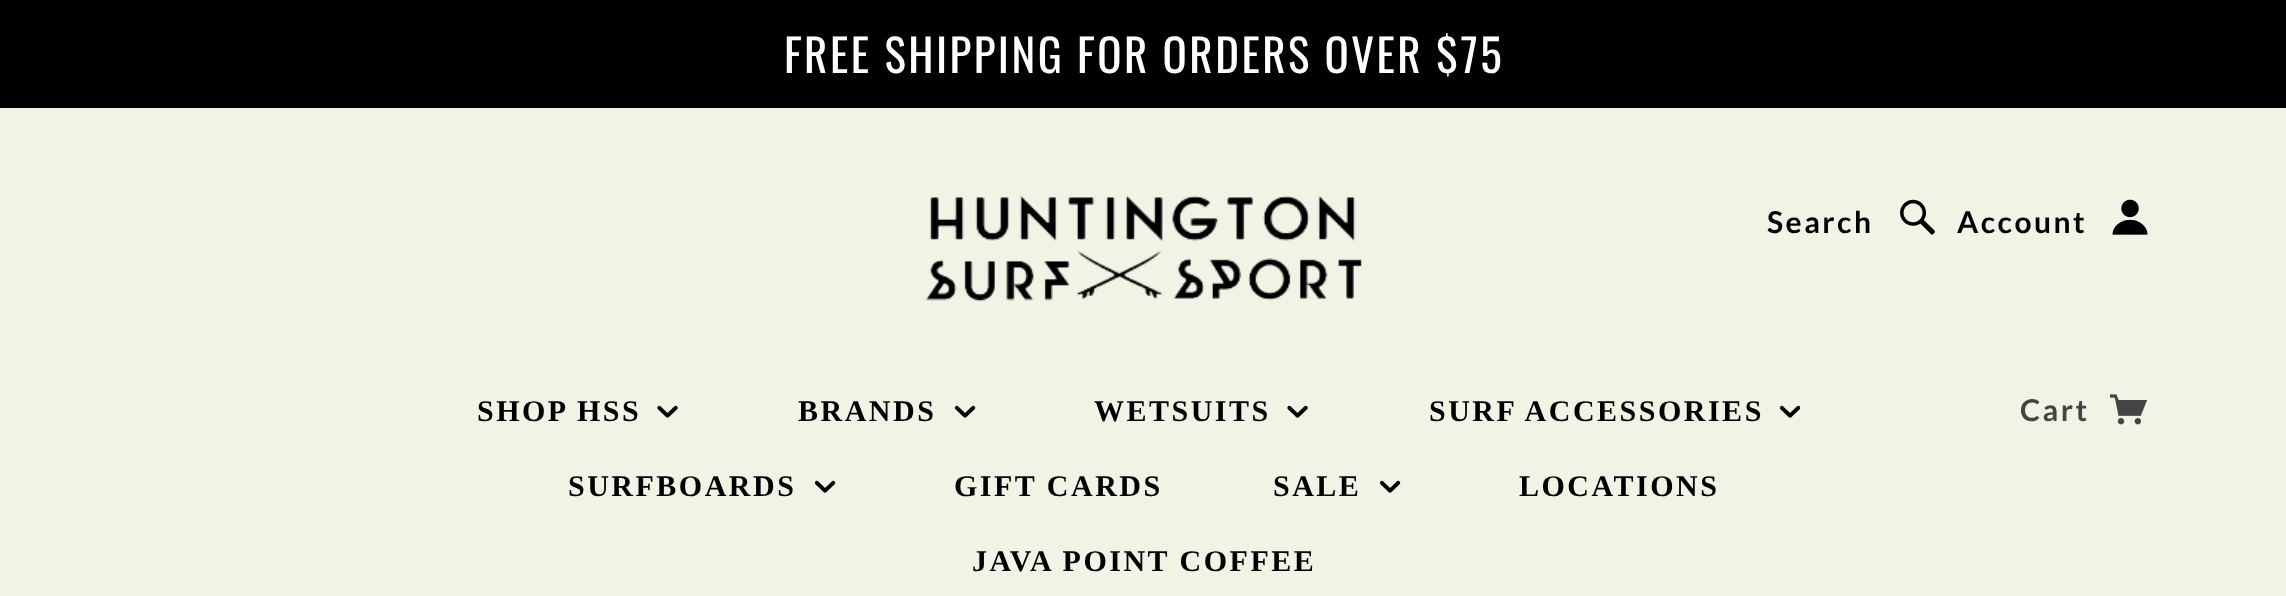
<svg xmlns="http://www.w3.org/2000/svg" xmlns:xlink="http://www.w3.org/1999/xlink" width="2286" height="596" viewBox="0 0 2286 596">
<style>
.cls-1{font:45px Oswald;letter-spacing:2.5px;fill:#ffffff}
.cls-2{font:bold 30px Lato;letter-spacing:2.5px;fill:#000000}
.cls-3{font:bold 30px Liberation Serif;letter-spacing:2.5px;fill:#000000}
.cls-4{font:bold 30px Lato;letter-spacing:2.5px;fill:#444444}
</style>
<rect width="100%" height="100%" fill="#f2f3e4"/>
<rect fill="#000000" x="0" y="0" width="2286" height="108"/>
<image xlink:href="image0.png" x="926" y="195" width="437" height="107"/>
<image xlink:href="image1.png" x="1900" y="199" width="35" height="36"/>
<image xlink:href="image2.png" x="2112" y="199" width="36" height="36"/>
<image xlink:href="image3.png" x="657" y="405" width="21" height="13"/>
<image xlink:href="image4.png" x="954" y="405" width="22" height="13"/>
<image xlink:href="image3.png" x="1287" y="405" width="21" height="13"/>
<image xlink:href="image4.png" x="1779" y="405" width="22" height="13"/>
<image xlink:href="image4.png" x="814" y="480" width="22" height="13"/>
<image xlink:href="image4.png" x="1379" y="480" width="22" height="13"/>
<image xlink:href="image5.png" x="2110" y="394" width="37" height="31"/>
<text class="cls-1" x="784" y="73">FREE SHIPPING FOR ORDERS OVER $75</text>
<text class="cls-2" x="1767" y="233">Search</text>
<text class="cls-2" x="1957" y="233">Account</text>
<text class="cls-3" x="477" y="421">SHOP HSS</text>
<text class="cls-3" x="798" y="421">BRANDS</text>
<text class="cls-3" x="1094" y="421">WETSUITS</text>
<text class="cls-3" x="1429" y="421">SURF ACCESSORIES</text>
<text class="cls-3" x="568" y="496">SURFBOARDS</text>
<text class="cls-3" x="954" y="496">GIFT CARDS</text>
<text class="cls-3" x="1273" y="496">SALE</text>
<text class="cls-3" x="1519" y="496">LOCATIONS</text>
<text class="cls-3" x="972" y="571">JAVA POINT COFFEE</text>
<text class="cls-4" x="2020" y="421">Cart</text>
</svg>
